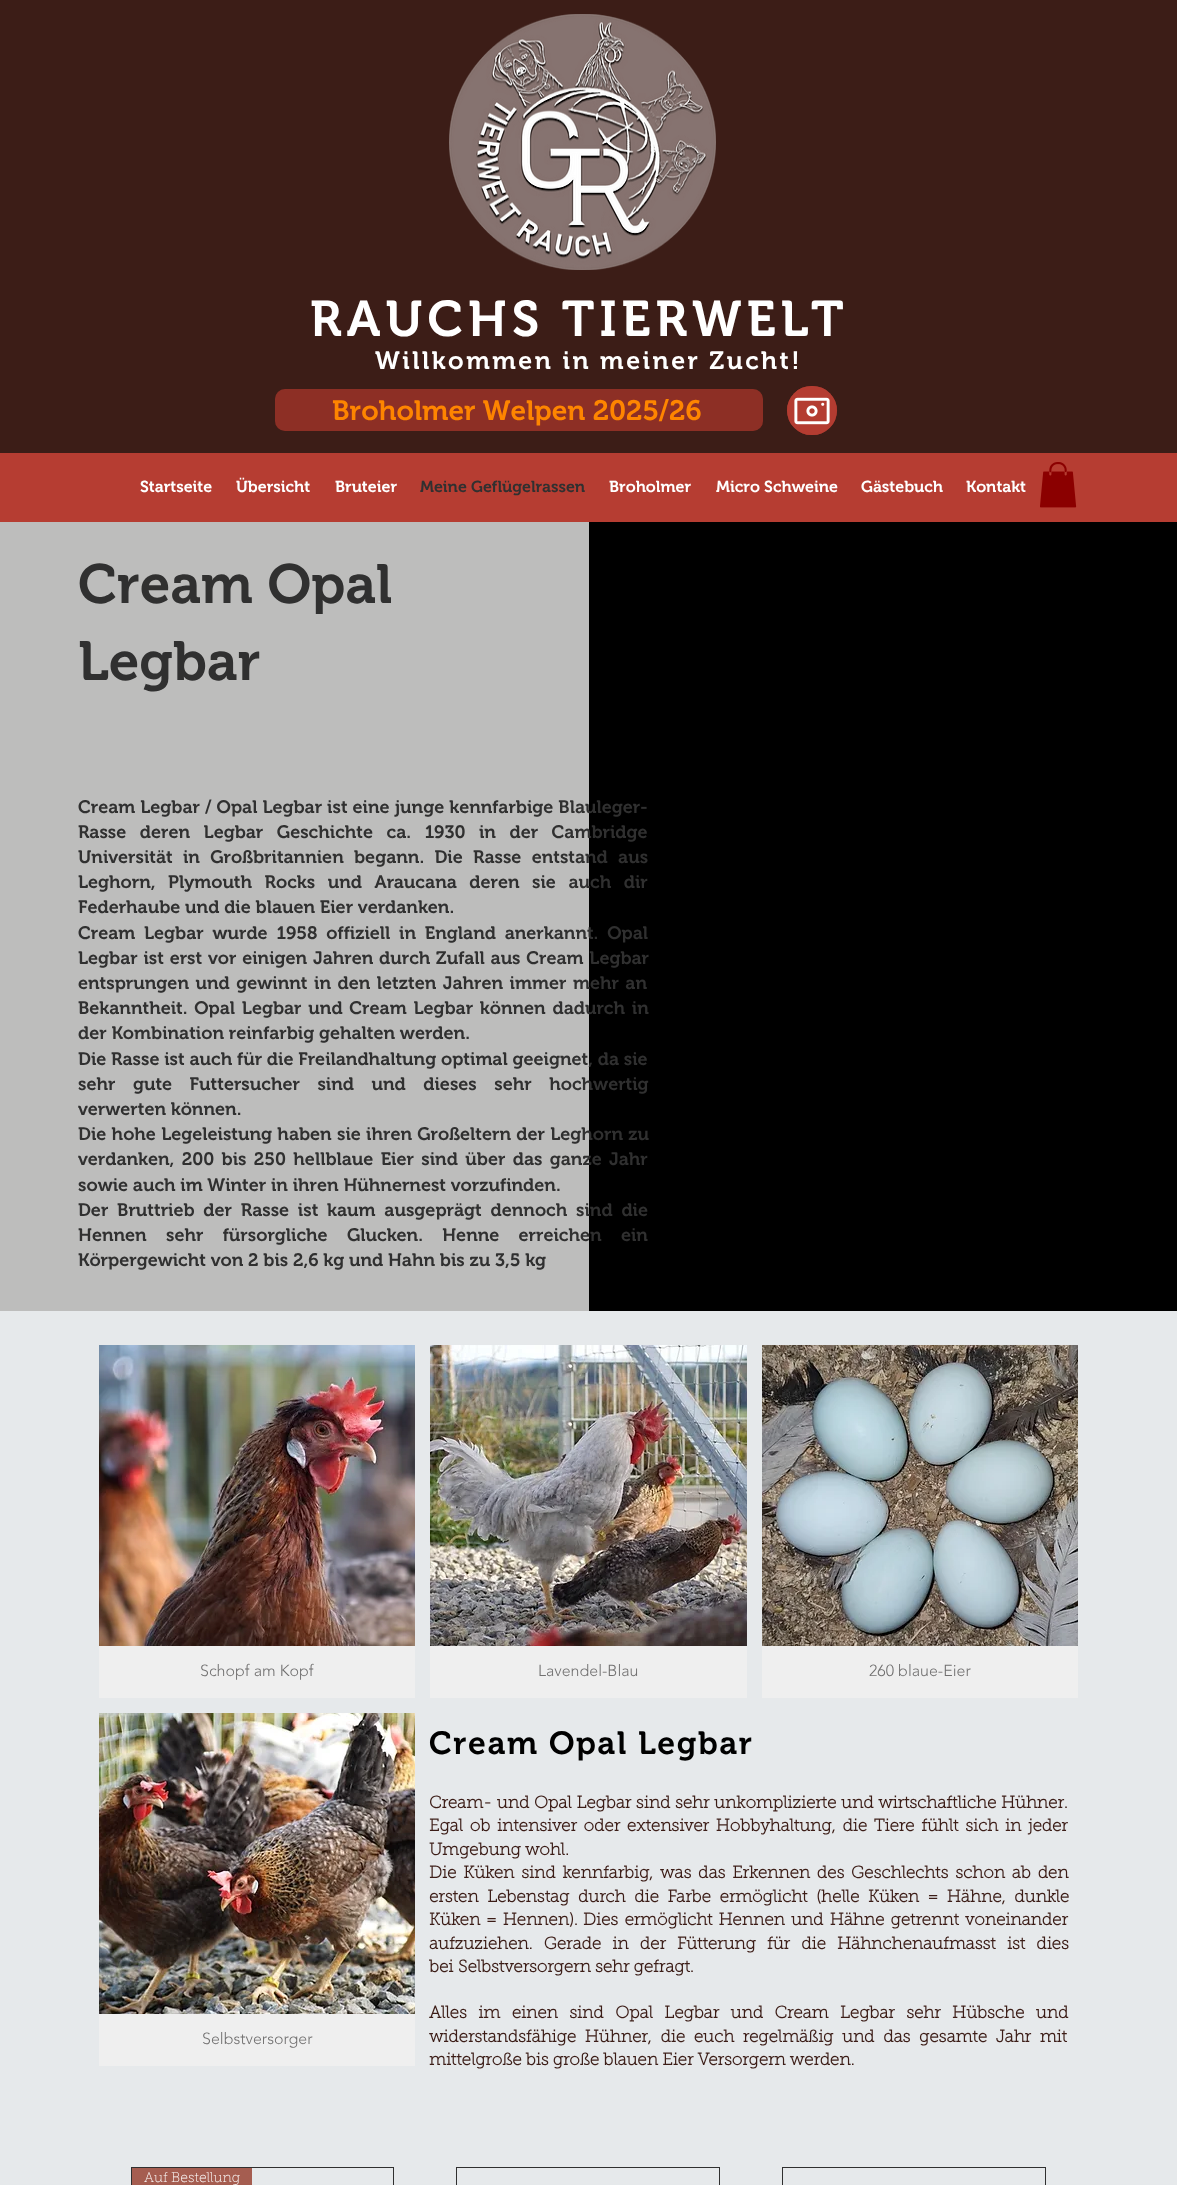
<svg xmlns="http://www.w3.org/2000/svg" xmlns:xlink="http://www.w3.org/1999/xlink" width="1177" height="2185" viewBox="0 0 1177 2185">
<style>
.cls-1{font:600 50px 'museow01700';letter-spacing:5px;fill:#ffffff}
.cls-2{font:600 25px 'museow01700';letter-spacing:2.5px;fill:#ffffff}
.cls-3{font:600 28px 'museow01700';fill:#fe8500}
.cls-4{font:600 16px 'museow01700';fill:#ffffff}
.cls-5{font:600 16px 'museow01700';fill:#303030}
.cls-6{font:600 55px 'museow01700';fill:#303030}
.cls-7{font:600 18px 'museow01700';fill:#303030}
.cls-8{font:300 16px 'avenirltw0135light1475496';fill:#717070}
.cls-9{font:600 32px 'museow01700';letter-spacing:1.6px;fill:#000000}
.cls-10{font:bold 17px 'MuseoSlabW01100';fill:#3c1d17}
.cls-11{font:100 14px 'MuseoSlabW01100';fill:#ffffff}
</style>
<rect width="100%" height="100%" fill="#e6e9eb"/>
<rect fill="#3c1d17" x="0" y="0" width="1177" height="453"/>
<image xlink:href="image0.png" x="449" y="14" width="267" height="256"/>
<rect fill="#94342a" x="275" y="389" width="488" height="42" rx="10"/>
<rect fill="#7b2019" fill-opacity="0.24" x="275" y="389" width="488" height="42" rx="10"/>
<rect fill="#ac3a30" x="787" y="386" width="50" height="49" rx="24.5"/>
<rect fill="#b63d32" fill-opacity="0.77" x="787" y="386" width="50" height="49" rx="24.5"/>
<image xlink:href="image1.png" x="794" y="397" width="36" height="28"/>
<rect fill="#b63d32" x="0" y="453" width="1177" height="69"/>
<image xlink:href="image2.png" x="1040" y="462" width="37" height="46"/>
<rect fill="#bdbdbc" x="0" y="522" width="589" height="789"/>
<rect fill="#000000" x="589" y="522" width="588" height="789"/>
<image xlink:href="image3.png" x="99" y="1345" width="316" height="301"/>
<rect fill="#efefef" x="99" y="1646" width="316" height="52"/>
<image xlink:href="image4.png" x="430" y="1345" width="317" height="301"/>
<rect fill="#efefef" x="430" y="1646" width="317" height="52"/>
<image xlink:href="image5.png" x="762" y="1345" width="316" height="301"/>
<rect fill="#efefef" x="762" y="1646" width="316" height="52"/>
<image xlink:href="image6.png" x="99" y="1713" width="316" height="301"/>
<rect fill="#efefef" x="99" y="2014" width="316" height="52"/>
<rect fill="none" stroke="#303030" x="131.5" y="2167.5" width="262" height="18"/>
<rect fill="#a55d50" x="132" y="2168" width="120" height="17"/>
<rect fill="none" stroke="#303030" x="456.5" y="2167.5" width="263" height="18"/>
<rect fill="none" stroke="#303030" x="782.5" y="2167.5" width="263" height="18"/>
<text class="cls-1" x="310" y="336">RAUCHS TIERWELT</text>
<text class="cls-2" x="375" y="369">Willkommen in meiner Zucht!</text>
<text class="cls-3" x="332" y="420">Broholmer Welpen 2025/26</text>
<text class="cls-4" x="140" y="492">Startseite</text>
<text class="cls-4" x="236" y="492">Übersicht</text>
<text class="cls-4" x="335" y="492">Bruteier</text>
<text class="cls-5" x="420" y="492">Meine Geflügelrassen</text>
<text class="cls-4" x="609" y="492">Broholmer</text>
<text class="cls-4" x="716" y="492">Micro Schweine</text>
<text class="cls-4" x="861" y="492">Gästebuch</text>
<text class="cls-4" x="966" y="492">Kontakt</text>
<text class="cls-6"><tspan x="78" y="603">Cream Opal</tspan><tspan x="78" y="680">Legbar</tspan></text>
<text class="cls-7"><tspan x="78" y="813" word-spacing="0.25">Cream Legbar / Opal Legbar ist eine junge kennfarbige Blauleger-</tspan><tspan x="78" y="838" word-spacing="8.75">Rasse deren Legbar Geschichte ca. 1930 in der Cambridge</tspan><tspan x="78" y="863" word-spacing="5.5">Universität in Großbritannien begann. Die Rasse entstand aus</tspan><tspan x="78" y="888" word-spacing="7.75">Leghorn, Plymouth Rocks und Araucana deren sie auch dir</tspan><tspan x="78" y="913">Federhaube und die blauen Eier verdanken.</tspan><tspan x="78" y="939" word-spacing="4">Cream Legbar wurde 1958 offiziell in England anerkannt. Opal</tspan><tspan x="78" y="964" word-spacing="1">Legbar ist erst vor einigen Jahren durch Zufall aus Cream Legbar</tspan><tspan x="78" y="989" word-spacing="1.75">entsprungen und gewinnt in den letzten Jahren immer mehr an</tspan><tspan x="78" y="1014" word-spacing="2">Bekanntheit. Opal Legbar und Cream Legbar können dadurch in</tspan><tspan x="78" y="1039">der Kombination reinfarbig gehalten werden.</tspan><tspan x="78" y="1065">Die Rasse ist auch für die Freilandhaltung optimal geeignet, da sie</tspan><tspan x="78" y="1090" word-spacing="12.75">sehr gute Futtersucher sind und dieses sehr hochwertig</tspan><tspan x="78" y="1115">verwerten können.</tspan><tspan x="78" y="1140" word-spacing="0.5">Die hohe Legeleistung haben sie ihren Großeltern der Leghorn zu</tspan><tspan x="78" y="1165" word-spacing="2.6">verdanken, 200 bis 250 hellblaue Eier sind über das ganze Jahr</tspan><tspan x="78" y="1191">sowie auch im Winter in ihren Hühnernest vorzufinden.</tspan><tspan x="78" y="1216" word-spacing="4">Der Bruttrieb der Rasse ist kaum ausgeprägt dennoch sind die</tspan><tspan x="78" y="1241" word-spacing="14.5">Hennen sehr fürsorgliche Glucken. Henne erreichen ein</tspan><tspan x="78" y="1266">Körpergewicht von 2 bis 2,6 kg und Hahn bis zu 3,5 kg</tspan></text>
<text class="cls-8" x="200" y="1676">Schopf am Kopf</text>
<text class="cls-8" x="538" y="1676">Lavendel-Blau</text>
<text class="cls-8" x="869" y="1676">260 blaue-Eier</text>
<text class="cls-8" x="202" y="2044">Selbstversorger</text>
<text class="cls-9" x="429" y="1754">Cream Opal Legbar</text>
<text class="cls-10"><tspan x="429" y="1808" word-spacing="0.5">Cream- und Opal Legbar sind sehr unkomplizierte und wirtschaftliche Hühner.</tspan><tspan x="429" y="1831" word-spacing="2.6">Egal ob intensiver oder extensiver Hobbyhaltung, die Tiere fühlt sich in jeder</tspan><tspan x="429" y="1855">Umgebung wohl.</tspan><tspan x="429" y="1878" word-spacing="2.6">Die Küken sind kennfarbig, was das Erkennen des Geschlechts schon ab den</tspan><tspan x="429" y="1902" word-spacing="4.5">ersten Lebenstag durch die Farbe ermöglicht (helle Küken = Hähne, dunkle</tspan><tspan x="429" y="1925" word-spacing="2">Küken = Hennen).</tspan></text>
<text class="cls-10" x="583" y="1925" word-spacing="2">Dies ermöglicht Hennen und Hähne getrennt voneinander</text>
<text class="cls-10"><tspan x="429" y="1949" word-spacing="7">aufzuziehen. Gerade in der Fütterung für die Hähnchenaufmasst ist dies</tspan><tspan x="429" y="1972">bei</tspan></text>
<text class="cls-10" x="458" y="1972">Selbstversorgern sehr gefragt.</text>
<text class="cls-10"><tspan x="429" y="2018" word-spacing="7.25">Alles im einen sind Opal Legbar und Cream Legbar sehr Hübsche und</tspan><tspan x="429" y="2042" word-spacing="4.5">widerstandsfähige Hühner, die euch regelmäßig und das gesamte Jahr mit</tspan><tspan x="429" y="2065">mittelgroße bis große blauen Eier Versorgern werden.</tspan></text>
<text class="cls-11" x="144" y="2182">Auf Bestellung</text>
</svg>
